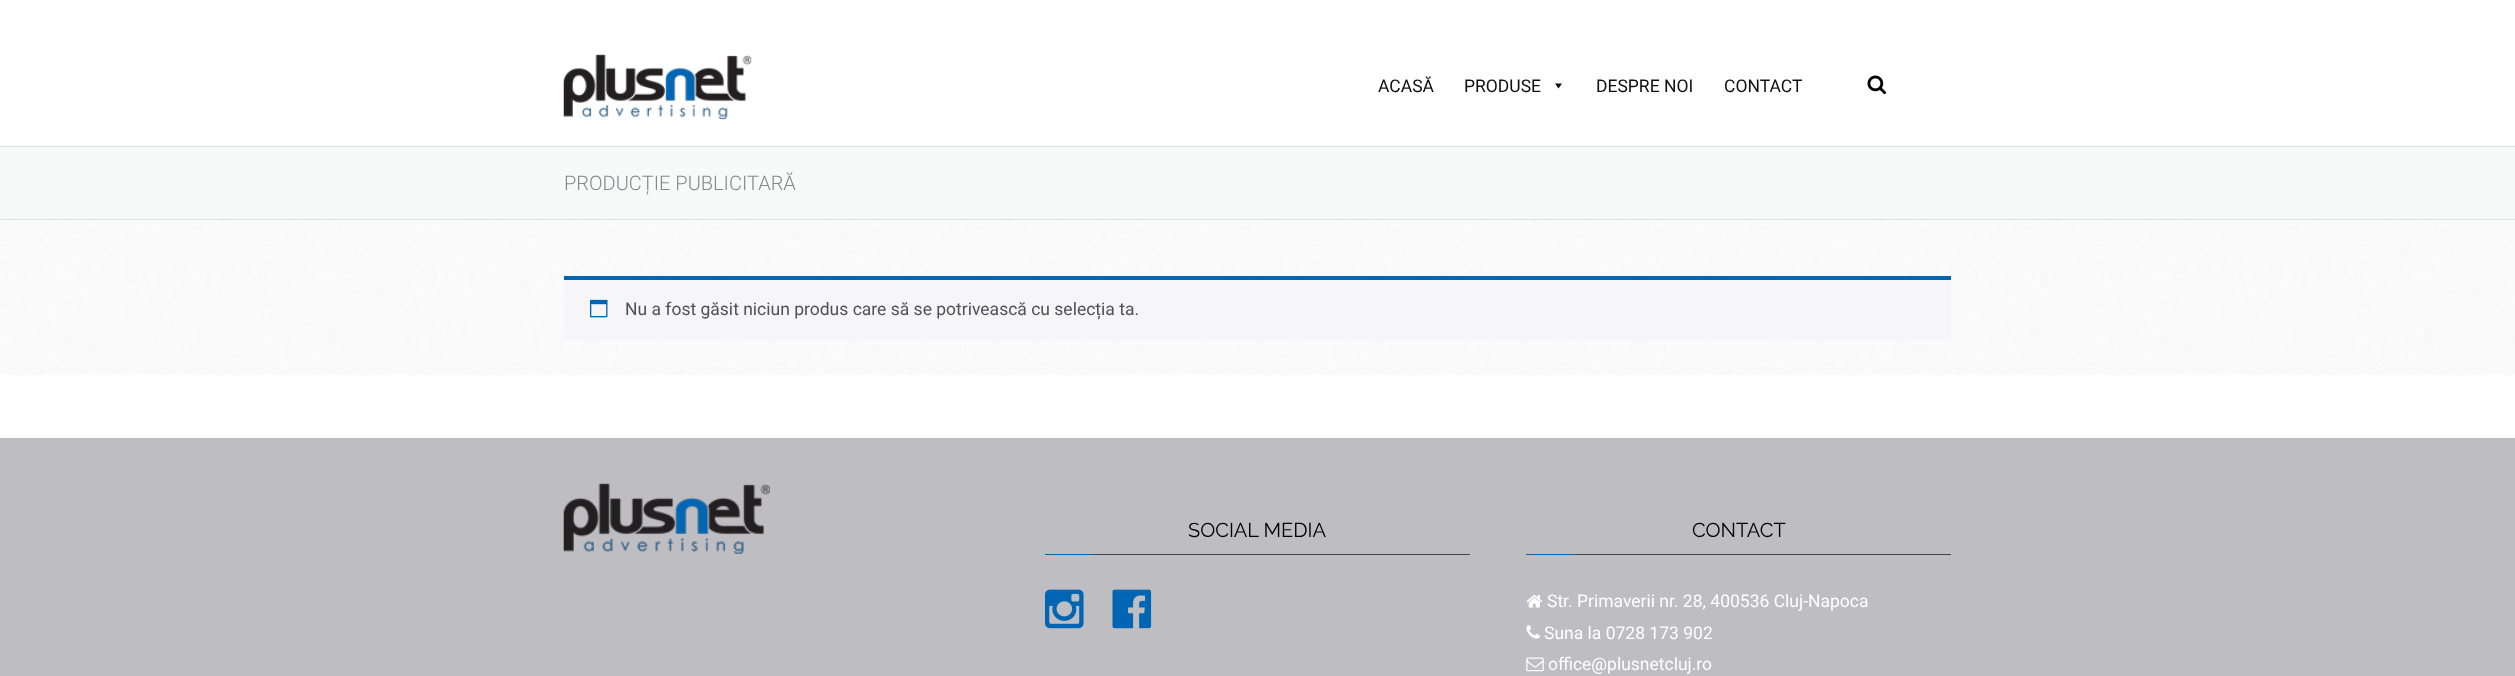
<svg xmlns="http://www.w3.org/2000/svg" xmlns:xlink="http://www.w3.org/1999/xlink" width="2515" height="676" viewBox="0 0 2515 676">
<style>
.cls-1{font:17.5px Roboto;fill:#101010}
.cls-2{font:300 20px Roboto;fill:#888888}
.cls-3{font:17.5px Roboto;fill:#515151}
.cls-4{font:20px Raleway;fill:#000000}
.cls-5{font:17.5px Roboto;fill:#ffffff}
</style>
<rect width="100%" height="100%" fill="#ffffff"/>
<image xlink:href="image0.png" x="563" y="54" width="189" height="66"/>
<path fill="#101010" d="M1562 83.5L1558.5 88.5L1555 83.5Z"/>
<image xlink:href="image1.png" x="1867" y="75" width="20" height="20"/>
<image xlink:href="image2.png" x="0" y="220" width="2515" height="155"/>
<rect fill="#f8f9f9" x="0" y="147" width="2515" height="72"/>
<rect fill="#e1e1e1" x="0" y="146" width="2515" height="1"/>
<rect fill="#e1e1e1" x="0" y="219" width="2515" height="1"/>
<rect fill="#f6f5f8" x="564" y="280" width="1387" height="60"/>
<rect fill="#0066b3" x="564" y="276" width="1387" height="4"/>
<image xlink:href="image3.png" x="590" y="299" width="18" height="19"/>
<rect fill="#bebdc2" x="0" y="438" width="2515" height="238"/>
<image xlink:href="image4.png" x="563" y="483" width="207" height="72"/>
<rect fill="#444444" x="1095" y="554" width="375" height="1"/>
<rect fill="#0066b3" x="1045" y="554" width="50" height="1"/>
<image xlink:href="image5.png" x="1045" y="589" width="39" height="40"/>
<image xlink:href="image6.png" x="1112" y="589" width="40" height="40"/>
<rect fill="#444444" x="1576" y="554" width="375" height="1"/>
<rect fill="#0066b3" x="1526" y="554" width="50" height="1"/>
<image xlink:href="image7.png" x="1526" y="595" width="17" height="13"/>
<image xlink:href="image8.png" x="1526" y="625" width="14" height="14"/>
<image xlink:href="image9.png" x="1526" y="657" width="18" height="15"/>
<text class="cls-1" x="1378" y="92">ACASĂ</text>
<text class="cls-1" x="1464" y="92">PRODUSE</text>
<text class="cls-1" x="1596" y="92">DESPRE NOI</text>
<text class="cls-1" x="1724" y="92">CONTACT</text>
<text class="cls-2" x="564" y="190">PRODUCȚIE PUBLICITARĂ</text>
<text class="cls-3" x="625" y="315">Nu a fost găsit niciun produs care să se potrivească cu selecția ta.</text>
<text class="cls-4" x="1188" y="537">SOCIAL MEDIA</text>
<text class="cls-4" x="1692" y="537">CONTACT</text>
<text class="cls-5" x="1547" y="607">Str. Primaverii nr. 28, 400536 Cluj-Napoca</text>
<text class="cls-5" x="1544" y="639">Suna la 0728 173 902</text>
<text class="cls-5" x="1548" y="670">office@plusnetcluj.ro</text>
</svg>
